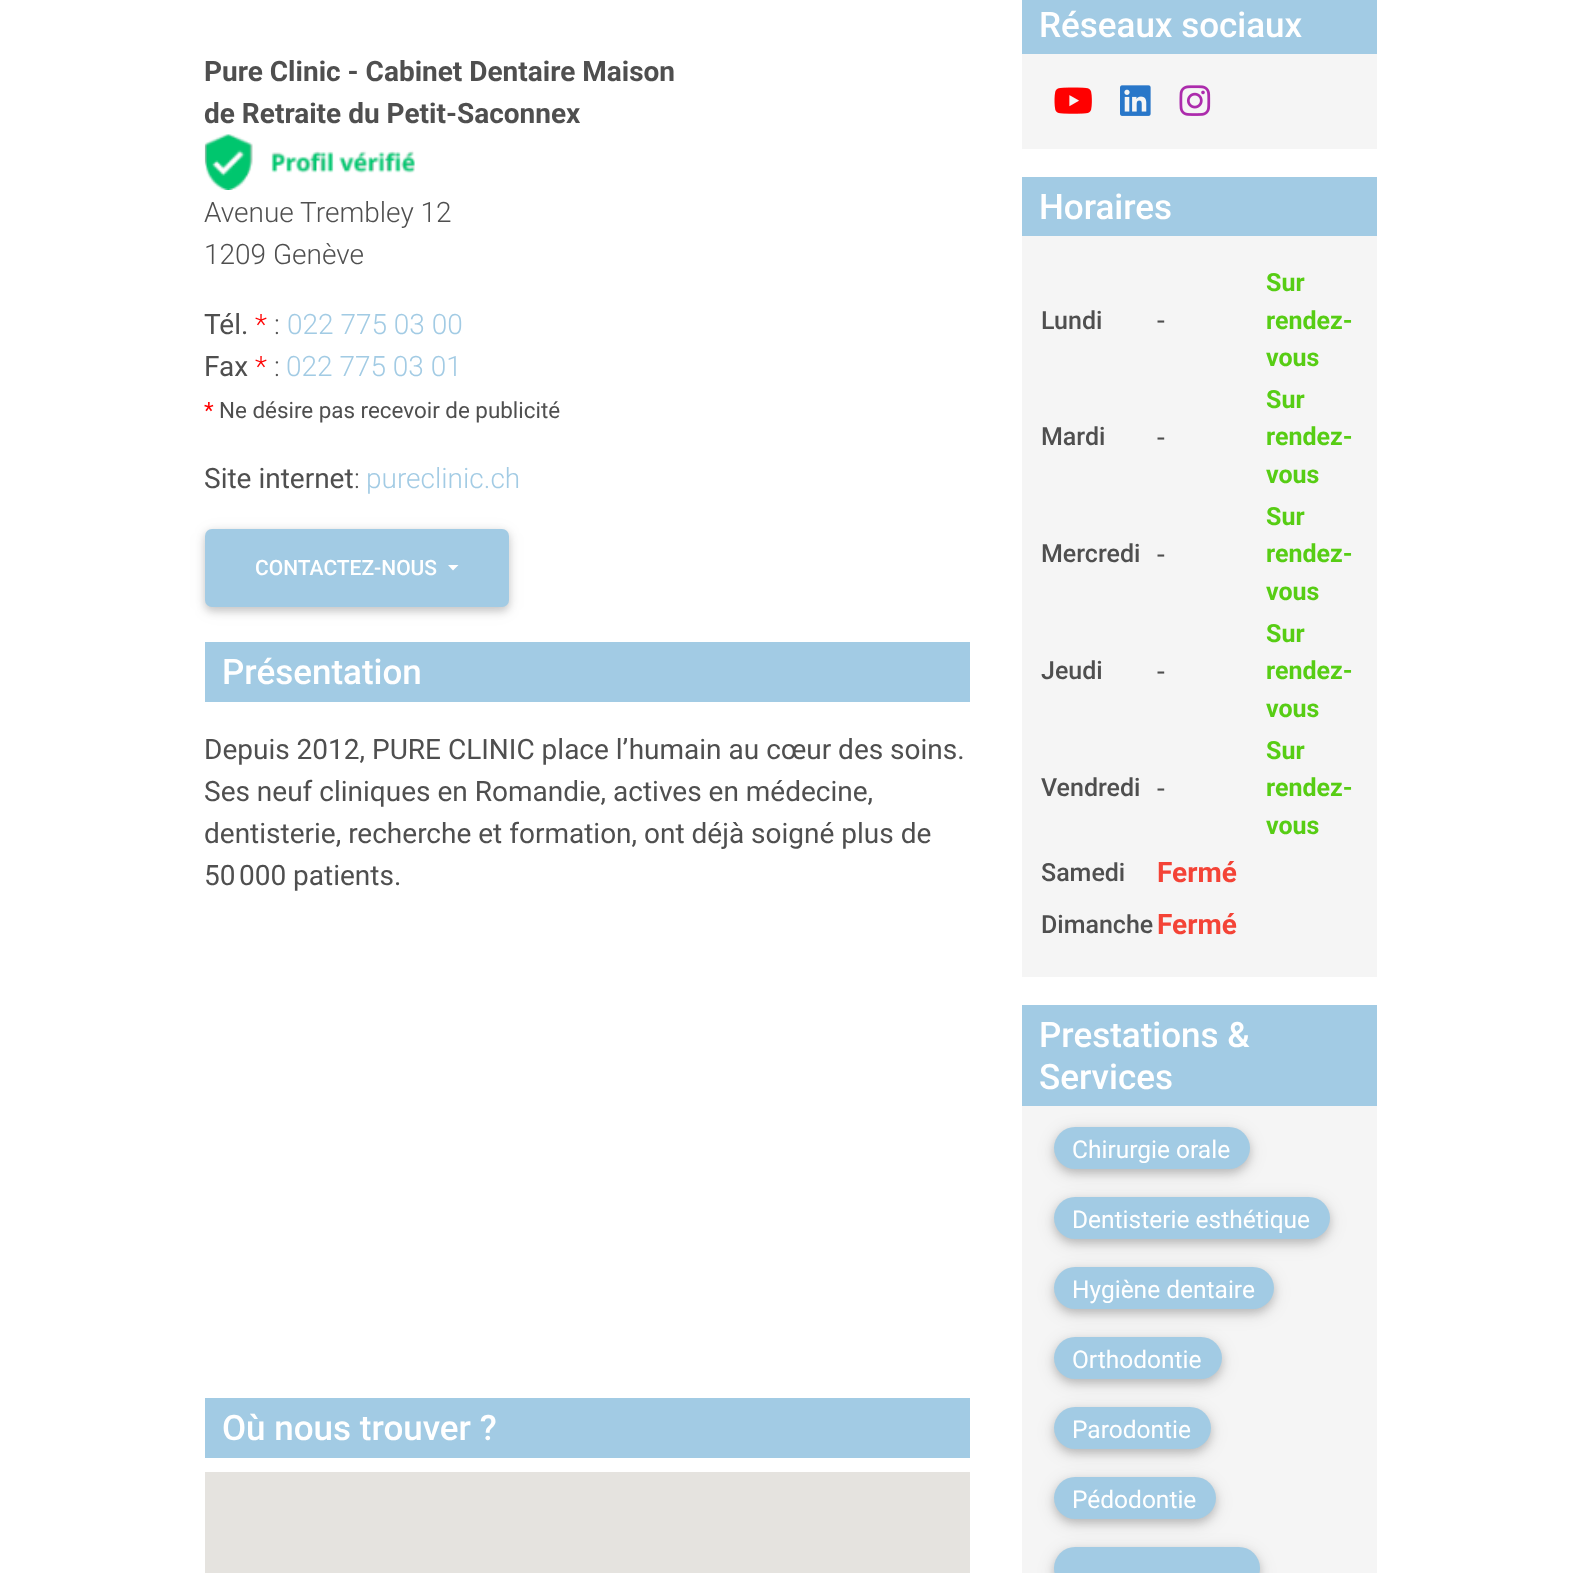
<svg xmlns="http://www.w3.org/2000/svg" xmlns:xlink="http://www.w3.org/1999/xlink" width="1581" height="1573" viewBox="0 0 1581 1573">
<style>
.cls-1{font:bold 28px Roboto;fill:#4f4f4f}
.cls-2{font:300 28px Roboto;fill:#4f4f4f}
.cls-3{font:28px Roboto;fill:#4f4f4f}
.cls-4{font:300 28px Roboto;fill:#ff0000}
.cls-5{font:300 28px Roboto;fill:#a2cbe4}
.cls-6{font:22.4px Roboto;fill:#ff0000}
.cls-7{font:22.4px Roboto;fill:#4f4f4f}
.cls-8{font:500 21px Roboto;fill:#ffffff}
.cls-9{font:500 35px Roboto;fill:#ffffff}
.cls-10{font:500 25px Roboto;fill:#4f4f4f}
.cls-11{font:bold 25px Roboto;fill:#57cd14}
.cls-12{font:bold 28px Roboto;fill:#f44336}
.cls-13{font:24.5px Roboto;fill:#ffffff}
</style>
<rect width="100%" height="100%" fill="#ffffff"/>
<image xlink:href="image0.png" x="204" y="134" width="211" height="56"/>
<rect fill="#000000" fill-opacity="0.05" filter="blur(9px)" x="205" y="532" width="304" height="79" rx="7"/>
<rect fill="#000000" fill-opacity="0.2" filter="blur(4.5px)" x="205" y="532" width="304" height="79" rx="7"/>
<rect fill="#a2cbe4" x="205" y="529" width="304" height="78" rx="7"/>
<path fill="#ffffff" d="M448 565H458.5L453 570.5Z"/>
<rect fill="#a2cbe4" x="205" y="642" width="765" height="60"/>
<rect fill="#a2cbe4" x="205" y="1398" width="765" height="60"/>
<rect fill="#e5e3df" x="205" y="1472" width="765" height="101"/>
<rect fill="#a2cbe4" x="1022" y="0" width="355" height="54"/>
<rect fill="#f5f5f5" x="1022" y="54" width="355" height="95"/>
<image xlink:href="image1.png" x="1054" y="87" width="38" height="27"/>
<image xlink:href="image2.png" x="1120" y="85" width="31" height="31"/>
<image xlink:href="image3.png" x="1179" y="85" width="32" height="31"/>
<rect fill="#a2cbe4" x="1022" y="177" width="355" height="59"/>
<rect fill="#f5f5f5" x="1022" y="236" width="355" height="741"/>
<rect fill="#a2cbe4" x="1022" y="1005" width="355" height="101"/>
<rect fill="#f5f5f5" x="1022" y="1106" width="355" height="467"/>
<rect fill="#000000" fill-opacity="0.12" filter="blur(9px)" x="1054" y="1131" width="196" height="42" rx="21"/>
<rect fill="#000000" fill-opacity="0.16" filter="blur(4.5px)" x="1054" y="1131" width="196" height="42" rx="21"/>
<rect fill="#a2cbe4" x="1054" y="1127" width="196" height="42" rx="21"/>
<rect fill="#000000" fill-opacity="0.12" filter="blur(9px)" x="1054" y="1201" width="276" height="42" rx="21"/>
<rect fill="#000000" fill-opacity="0.16" filter="blur(4.5px)" x="1054" y="1201" width="276" height="42" rx="21"/>
<rect fill="#a2cbe4" x="1054" y="1197" width="276" height="42" rx="21"/>
<rect fill="#000000" fill-opacity="0.12" filter="blur(9px)" x="1054" y="1271" width="220" height="42" rx="21"/>
<rect fill="#000000" fill-opacity="0.16" filter="blur(4.5px)" x="1054" y="1271" width="220" height="42" rx="21"/>
<rect fill="#a2cbe4" x="1054" y="1267" width="220" height="42" rx="21"/>
<rect fill="#000000" fill-opacity="0.12" filter="blur(9px)" x="1054" y="1341" width="168" height="42" rx="21"/>
<rect fill="#000000" fill-opacity="0.16" filter="blur(4.5px)" x="1054" y="1341" width="168" height="42" rx="21"/>
<rect fill="#a2cbe4" x="1054" y="1337" width="168" height="42" rx="21"/>
<rect fill="#000000" fill-opacity="0.12" filter="blur(9px)" x="1054" y="1411" width="157" height="42" rx="21"/>
<rect fill="#000000" fill-opacity="0.16" filter="blur(4.5px)" x="1054" y="1411" width="157" height="42" rx="21"/>
<rect fill="#a2cbe4" x="1054" y="1407" width="157" height="42" rx="21"/>
<rect fill="#000000" fill-opacity="0.12" filter="blur(9px)" x="1054" y="1481" width="162" height="42" rx="21"/>
<rect fill="#000000" fill-opacity="0.16" filter="blur(4.5px)" x="1054" y="1481" width="162" height="42" rx="21"/>
<rect fill="#a2cbe4" x="1054" y="1477" width="162" height="42" rx="21"/>
<rect fill="#000000" fill-opacity="0.12" filter="blur(9px)" x="1054" y="1551" width="206" height="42" rx="21"/>
<rect fill="#000000" fill-opacity="0.16" filter="blur(4.5px)" x="1054" y="1551" width="206" height="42" rx="21"/>
<rect fill="#a2cbe4" x="1054" y="1547" width="206" height="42" rx="21"/>
<text class="cls-1"><tspan x="204" y="81">Pure Clinic - Cabinet Dentaire Maison</tspan><tspan x="204" y="123">de Retraite du Petit-Saconnex</tspan></text>
<text class="cls-2"><tspan x="204" y="222">Avenue Trembley 12</tspan><tspan x="204" y="264">1209 Genève</tspan></text>
<text class="cls-3" x="204" y="334">Tél.</text>
<text class="cls-4" x="255" y="334">*</text>
<text class="cls-2" x="274" y="334">:</text>
<text class="cls-5" x="287" y="334">022 775 03 00</text>
<text class="cls-3" x="204" y="376">Fax</text>
<text class="cls-4" x="255" y="376">*</text>
<text class="cls-2" x="274" y="376">:</text>
<text class="cls-5" x="286" y="376">022 775 03 01</text>
<text class="cls-6" x="204" y="418">*</text>
<text class="cls-7" x="219" y="418">Ne désire pas recevoir de publicité</text>
<text class="cls-3" x="204" y="488">Site internet</text>
<text class="cls-2" x="354" y="488">:</text>
<text class="cls-5" x="366" y="488">pureclinic.ch</text>
<text class="cls-8" x="255" y="575">CONTACTEZ-NOUS</text>
<text class="cls-9" x="222" y="684">Présentation</text>
<text class="cls-3"><tspan x="204" y="759">Depuis 2012, PURE CLINIC place l’humain au cœur des soins.</tspan><tspan x="204" y="801">Ses neuf cliniques en Romandie, actives en médecine,</tspan><tspan x="204" y="843">dentisterie, recherche et formation, ont déjà soigné plus de</tspan><tspan x="204" y="885">50 000 patients.</tspan></text>
<text class="cls-9" x="222" y="1440">Où nous trouver ?</text>
<text class="cls-9" x="1039" y="37">Réseaux sociaux</text>
<text class="cls-9" x="1039" y="219">Horaires</text>
<text class="cls-10" x="1041" y="329">Lundi</text>
<text class="cls-3" x="1157" y="330">-</text>
<text class="cls-11"><tspan x="1266" y="291">Sur</tspan><tspan x="1266" y="329">rendez-</tspan><tspan x="1266" y="366">vous</tspan></text>
<text class="cls-10" x="1041" y="445">Mardi</text>
<text class="cls-3" x="1157" y="447">-</text>
<text class="cls-11"><tspan x="1266" y="408">Sur</tspan><tspan x="1266" y="445">rendez-</tspan><tspan x="1266" y="483">vous</tspan></text>
<text class="cls-10" x="1041" y="562">Mercredi</text>
<text class="cls-3" x="1157" y="564">-</text>
<text class="cls-11"><tspan x="1266" y="525">Sur</tspan><tspan x="1266" y="562">rendez-</tspan><tspan x="1266" y="600">vous</tspan></text>
<text class="cls-10" x="1041" y="679">Jeudi</text>
<text class="cls-3" x="1157" y="681">-</text>
<text class="cls-11"><tspan x="1266" y="642">Sur</tspan><tspan x="1266" y="679">rendez-</tspan><tspan x="1266" y="717">vous</tspan></text>
<text class="cls-10" x="1041" y="796">Vendredi</text>
<text class="cls-3" x="1157" y="798">-</text>
<text class="cls-11"><tspan x="1266" y="759">Sur</tspan><tspan x="1266" y="796">rendez-</tspan><tspan x="1266" y="834">vous</tspan></text>
<text class="cls-10" x="1041" y="881">Samedi</text>
<text class="cls-12" x="1157" y="882">Fermé</text>
<text class="cls-10" x="1041" y="933">Dimanche</text>
<text class="cls-12" x="1157" y="934">Fermé</text>
<text class="cls-9"><tspan x="1039" y="1047">Prestations &amp;</tspan><tspan x="1039" y="1089">Services</tspan></text>
<text class="cls-13" x="1072" y="1158">Chirurgie orale</text>
<text class="cls-13" x="1072" y="1228">Dentisterie esthétique</text>
<text class="cls-13" x="1072" y="1298">Hygiène dentaire</text>
<text class="cls-13" x="1072" y="1368">Orthodontie</text>
<text class="cls-13" x="1072" y="1438">Parodontie</text>
<text class="cls-13" x="1072" y="1508">Pédodontie</text>
</svg>
